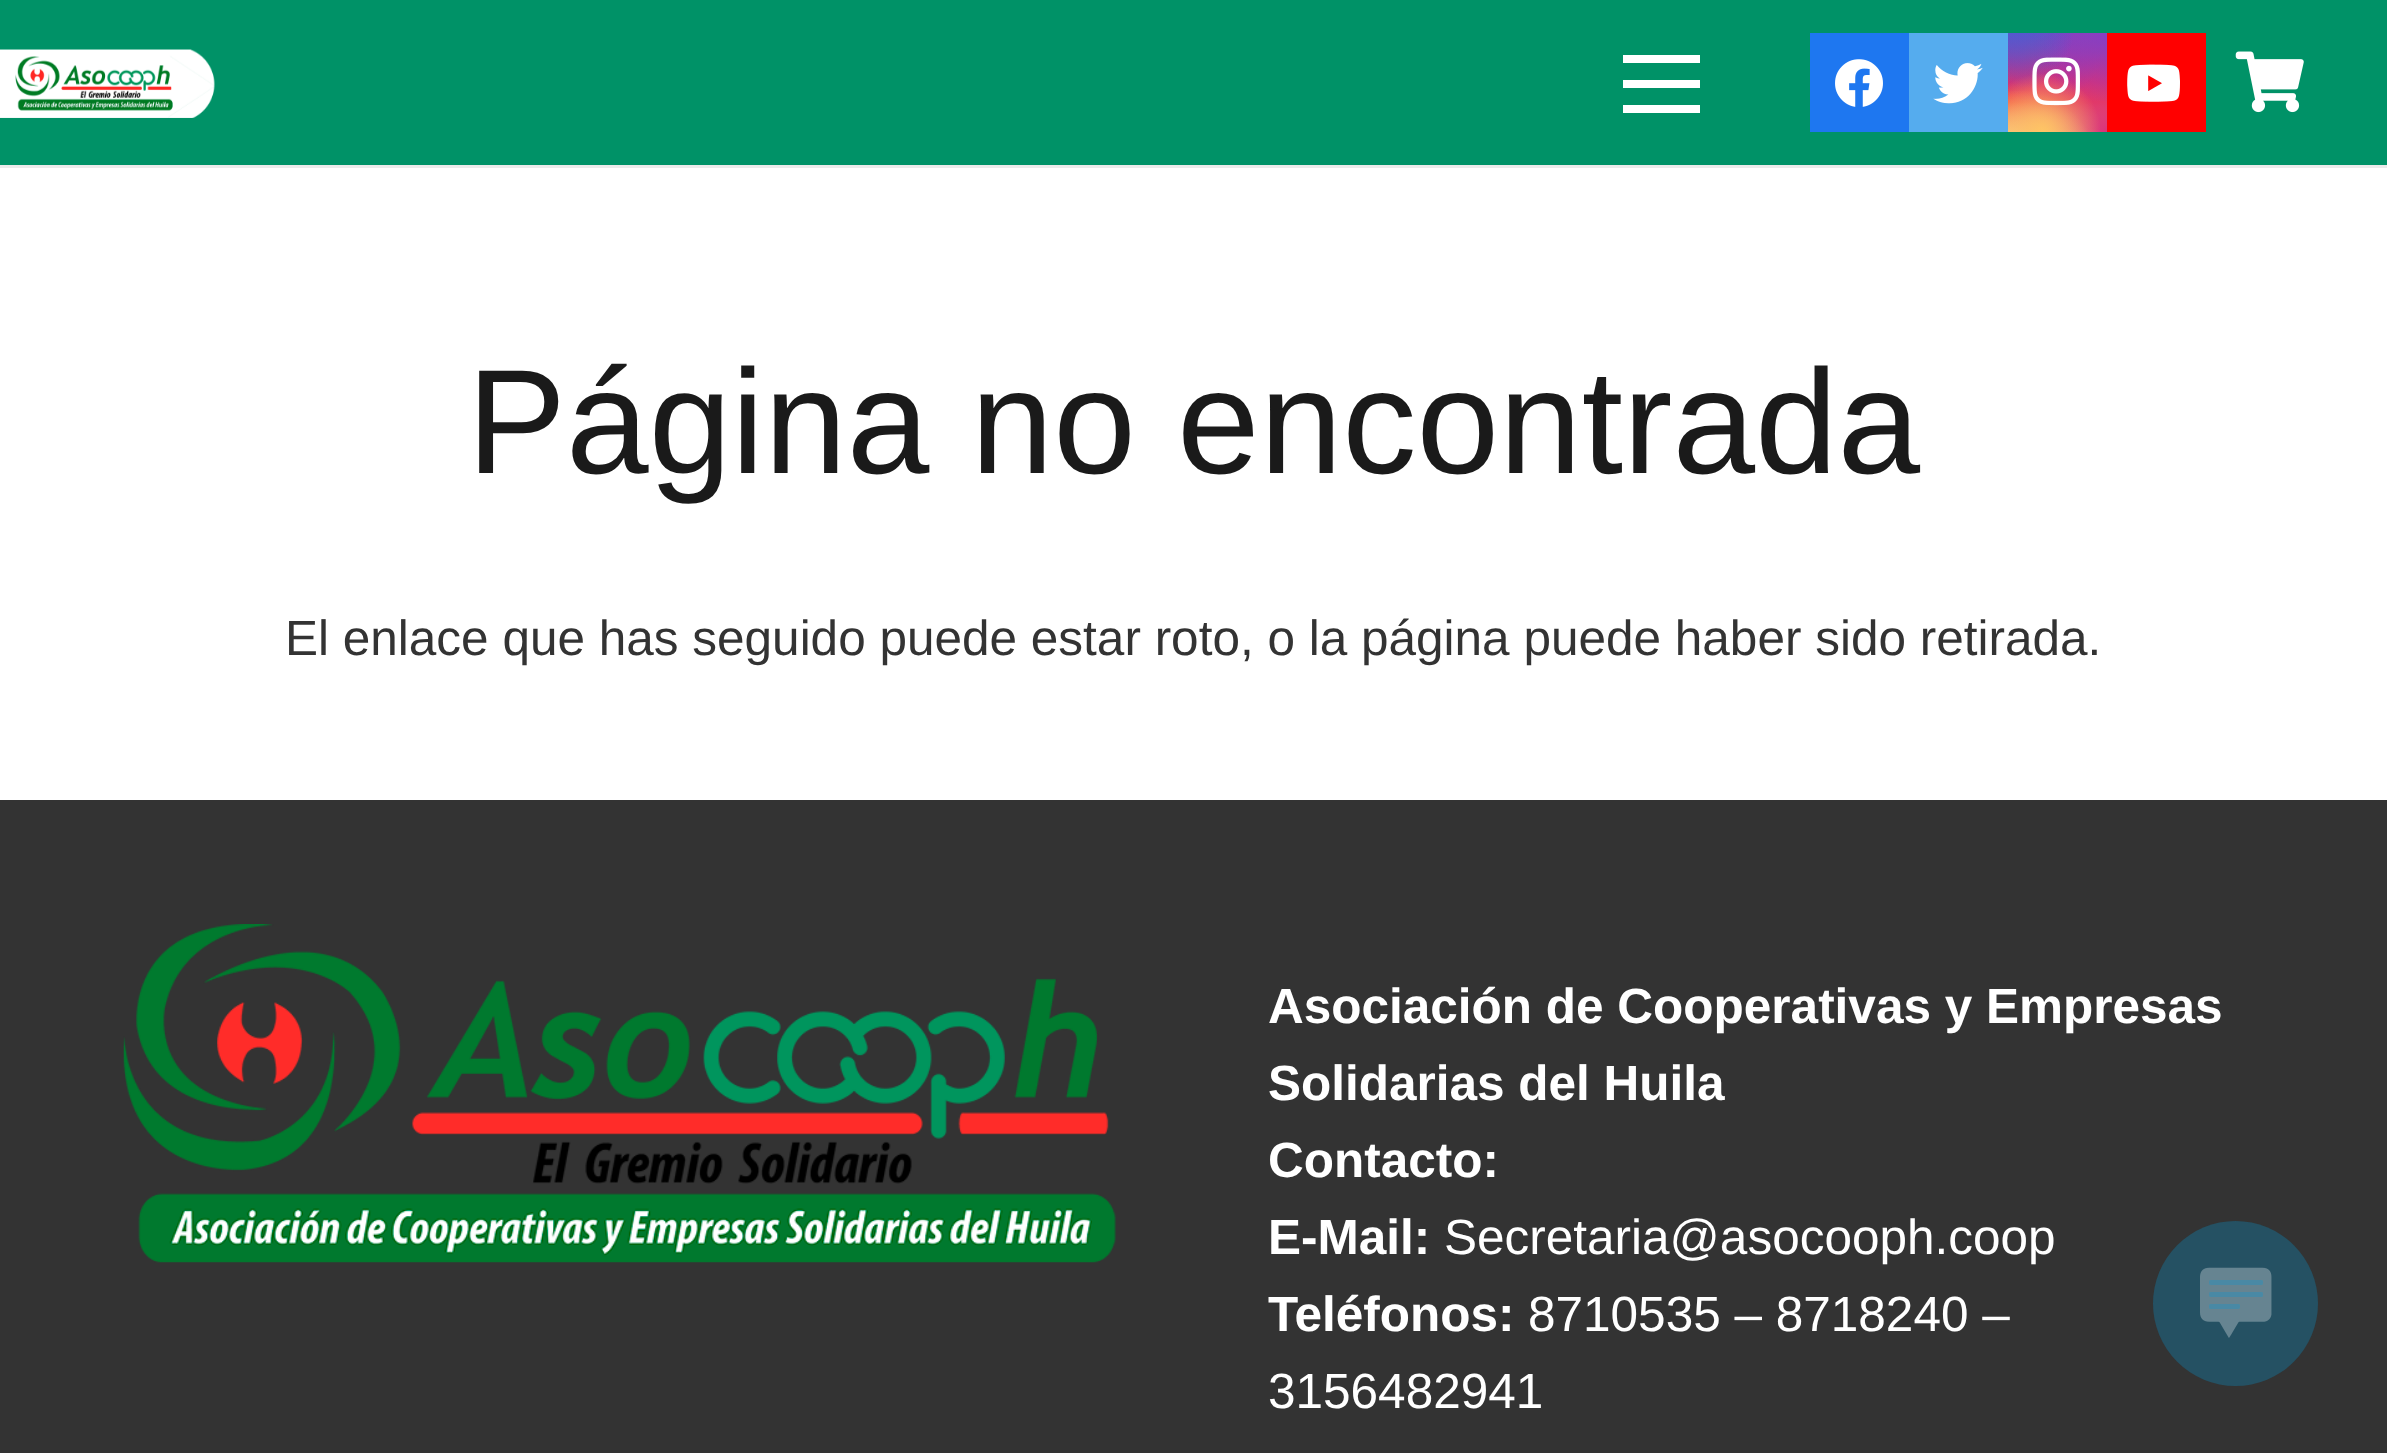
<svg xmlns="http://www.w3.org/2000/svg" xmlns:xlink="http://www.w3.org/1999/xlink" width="2387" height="1453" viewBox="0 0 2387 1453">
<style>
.cls-1{font:148.5px Liberation Sans;fill:#1a1a1a}
.cls-2{font:49.5px Liberation Sans;fill:#333333}
.cls-3{font:bold 49.5px Liberation Sans;fill:#ffffff}
.cls-4{font:49.5px Liberation Sans;fill:#ffffff}
</style>
<defs>
<linearGradient id="g1" gradientUnits="userSpaceOnUse" x1="2057" y1="33" x2="2057" y2="132"><stop offset="0" stop-color="#6559ca"/><stop offset="0.3" stop-color="#bc318f"/><stop offset="0.5" stop-color="#e42e66"/><stop offset="0.7" stop-color="#fa5332"/><stop offset="1" stop-color="#ffdc80"/></linearGradient>
<radialGradient id="g2" gradientUnits="userSpaceOnUse" cx="2107" cy="132" r="140"><stop offset="0" stop-color="#d9317a"/><stop offset="1" stop-color="#d9317a" stop-opacity="0"/></radialGradient>
<radialGradient id="g3" gradientUnits="userSpaceOnUse" cx="0" cy="0" r="1" gradientTransform="matrix(84 0 0 168 2067 13)"><stop offset="0" stop-color="#893dc2"/><stop offset="0.5" stop-color="#893dc2" stop-opacity="0"/></radialGradient>
<radialGradient id="g4" gradientUnits="userSpaceOnUse" cx="2107" cy="33" r="140"><stop offset="0" stop-color="#893dc2"/><stop offset="0.5" stop-color="#893dc2" stop-opacity="0"/></radialGradient>
<radialGradient id="g5" gradientUnits="userSpaceOnUse" cx="0" cy="0" r="1" gradientTransform="matrix(112 0 0 210 2027 -16)"><stop offset="0" stop-color="#5258cf"/><stop offset="0.5" stop-color="#5258cf" stop-opacity="0"/></radialGradient>
<radialGradient id="g6" gradientUnits="userSpaceOnUse" cx="0" cy="0" r="1" gradientTransform="matrix(140 0 0 175 2008 8)"><stop offset="0" stop-color="#5258cf"/><stop offset="0.5" stop-color="#5258cf" stop-opacity="0"/></radialGradient>
<radialGradient id="g7" gradientUnits="userSpaceOnUse" cx="2017" cy="172" r="165"><stop offset="0" stop-color="#feda7e"/><stop offset="0.5" stop-color="#feda7e" stop-opacity="0"/></radialGradient>
<radialGradient id="g8" gradientUnits="userSpaceOnUse" cx="2042" cy="132" r="118"><stop offset="0" stop-color="#fec564"/><stop offset="0.5" stop-color="#fec564" stop-opacity="0"/></radialGradient>
</defs>
<rect width="100%" height="100%" fill="#ffffff"/>
<rect fill="#ebebeb" x="0" y="165" width="2387" height="3"/>
<rect fill="#009267" x="0" y="0" width="2387" height="165"/>
<image xlink:href="image0.png" x="0" y="49" width="215" height="69"/>
<rect fill="#ffffff" x="1623" y="80" width="77" height="8"/>
<rect fill="#ffffff" x="1623" y="55" width="77" height="8"/>
<rect fill="#ffffff" x="1623" y="105" width="77" height="8"/>
<rect fill="#1e77f0" x="1810" y="33" width="99" height="99"/>
<image xlink:href="image1.png" x="1835" y="59" width="48" height="48"/>
<rect fill="#55acee" x="1909" y="33" width="99" height="99"/>
<image xlink:href="image2.png" x="1933" y="63" width="50" height="41"/>
<rect fill="url(#g1)" x="2008" y="33" width="99" height="99"/>
<rect fill="url(#g2)" x="2008" y="33" width="99" height="99"/>
<rect fill="url(#g3)" x="2031" y="33" width="73" height="62"/>
<rect fill="url(#g4)" x="2044" y="33" width="63" height="68"/>
<rect fill="url(#g5)" x="2008" y="33" width="65" height="54"/>
<rect fill="url(#g6)" x="2008" y="33" width="63" height="61"/>
<rect fill="url(#g7)" x="2008" y="91" width="79" height="41"/>
<rect fill="url(#g8)" x="2008" y="74" width="92" height="58"/>
<image xlink:href="image3.png" x="2032" y="57" width="48" height="49"/>
<rect fill="#ff0000" x="2107" y="33" width="99" height="99"/>
<image xlink:href="image4.png" x="2127" y="64" width="53" height="38"/>
<image xlink:href="image5.png" x="2235" y="51" width="69" height="62"/>
<rect fill="#333333" x="0" y="800" width="2387" height="653"/>
<image xlink:href="image6.png" x="123" y="924" width="993" height="339"/>
<circle fill="#255163" cx="2235.5" cy="1303.5" r="82.5"/>
<image xlink:href="image7.png" x="2200" y="1267" width="72" height="71"/>
<text class="cls-1" x="467" y="473">Página no encontrada</text>
<text class="cls-2" x="285" y="655">El enlace que has seguido puede estar roto, o la página puede haber sido retirada.</text>
<text class="cls-3"><tspan x="1268" y="1023">Asociación de Cooperativas y Empresas</tspan><tspan x="1268" y="1100">Solidarias del Huila</tspan><tspan x="1268" y="1177">Contacto:</tspan><tspan x="1268" y="1254">E-Mail:</tspan></text>
<text class="cls-4" x="1444" y="1254">Secretaria@asocooph.coop</text>
<text class="cls-3" x="1268" y="1331">Teléfonos:</text>
<text class="cls-4" x="1528" y="1331">8710535 – 8718240 –</text>
<text class="cls-4" x="1268" y="1408">3156482941</text>
</svg>
